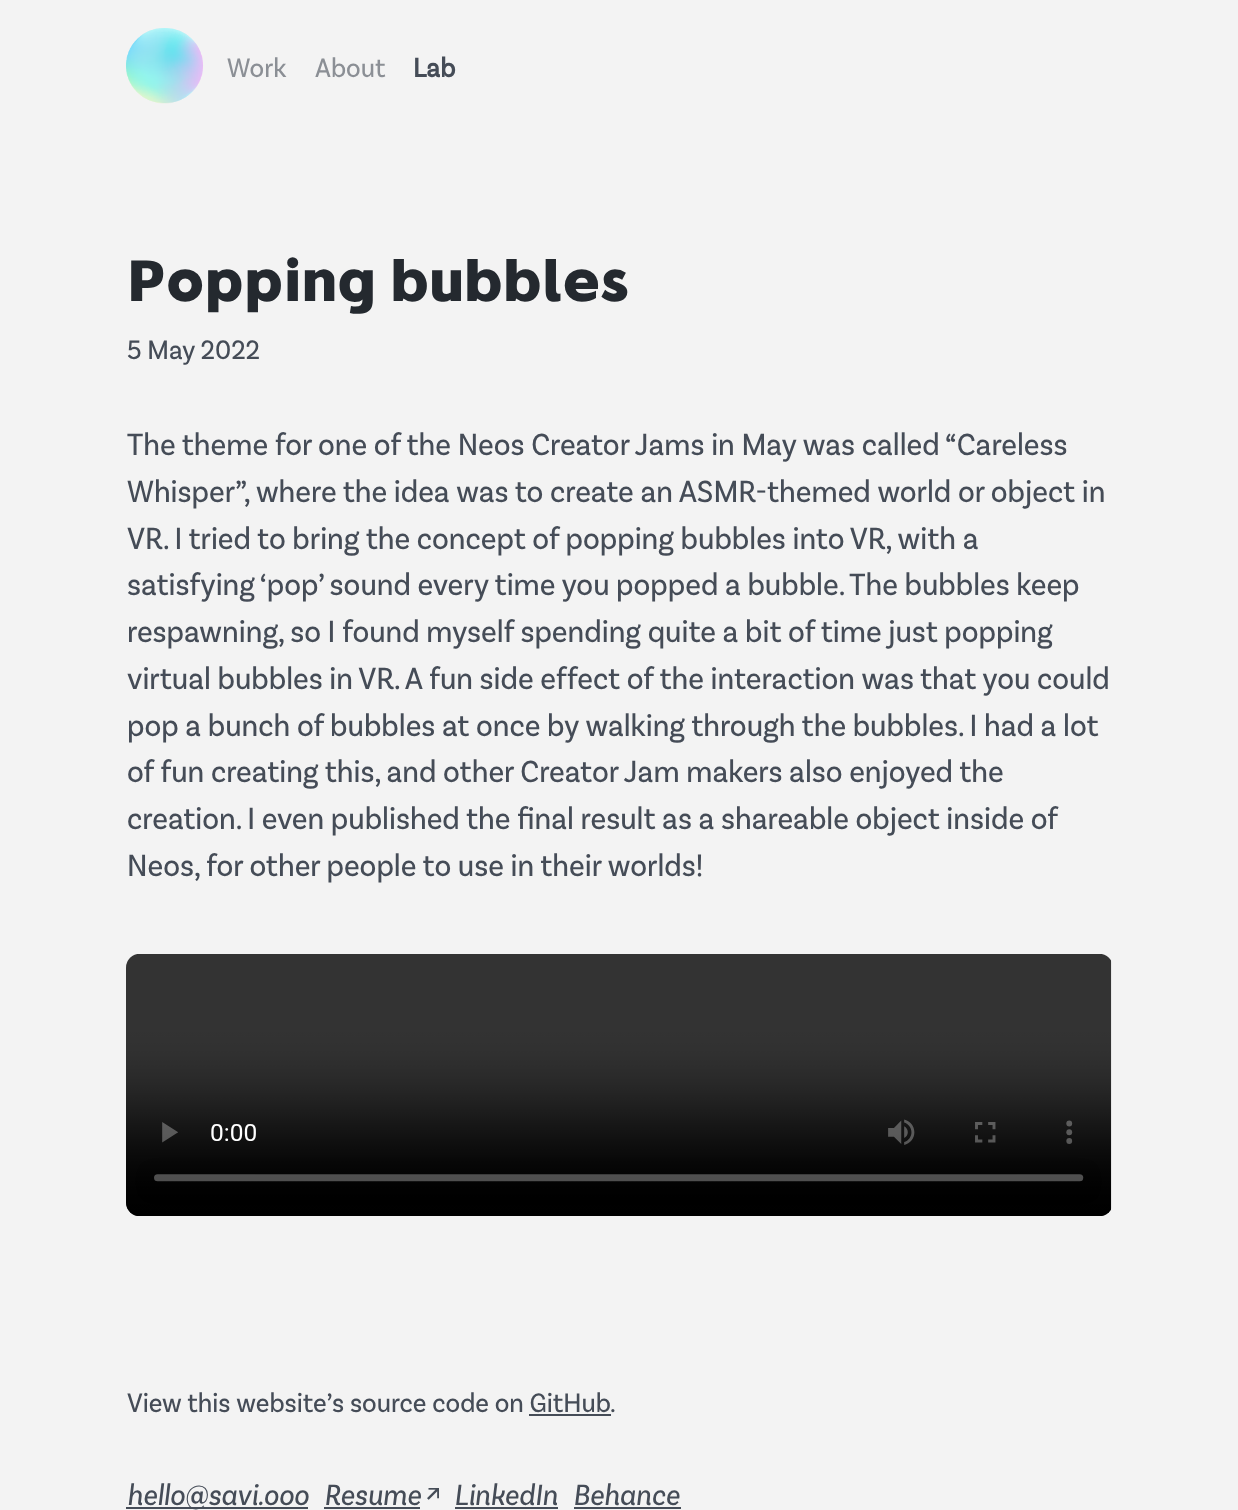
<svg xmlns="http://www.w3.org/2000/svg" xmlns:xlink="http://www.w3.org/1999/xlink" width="1238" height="1510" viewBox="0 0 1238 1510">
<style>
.cls-1{font:28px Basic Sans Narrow;fill:#8b8f95}
.cls-2{font:bold 28px Basic Sans Narrow;fill:#454c57}
.cls-3{font:bold 56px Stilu;fill:#24292f}
.cls-4{font:28px Basic Sans Narrow;fill:#454c57}
.cls-5{font:32.2px Basic Sans Narrow;fill:#454c57}
.cls-6{font:italic 30.75px BasicSans Narrow;fill:#454c57}
</style>
<rect width="100%" height="100%" fill="#f3f3f3"/>
<rect fill="#c2e9f2" x="126" y="28" width="77" height="75" rx="37.5"/>
<image xlink:href="image0.png" x="126" y="28" width="77" height="76"/>
<image xlink:href="image1.png" x="126" y="954" width="986" height="262"/>
<rect fill="#454c57" x="529" y="1414" width="82" height="2"/>
<rect fill="#454c57" x="126" y="1507" width="182" height="2"/>
<rect fill="#454c57" x="324" y="1507" width="96" height="2"/>
<image xlink:href="image2.png" x="427" y="1488" width="12" height="12"/>
<rect fill="#454c57" x="455" y="1507" width="103" height="2"/>
<rect fill="#454c57" x="574" y="1507" width="107" height="2"/>
<text class="cls-1" x="227" y="77">Work</text>
<text class="cls-1" x="315" y="77">About</text>
<text class="cls-2" x="413" y="77">Lab</text>
<text class="cls-3" x="127" y="301">Popping bubbles</text>
<text class="cls-4" x="127" y="359">5 May 2022</text>
<text class="cls-5"><tspan x="127" y="455">The theme for one of the Neos Creator Jams in May was called “Careless</tspan><tspan x="127" y="502">Whisper”, where the idea was to create an ASMR-themed world or object in</tspan><tspan x="127" y="549">VR. I tried to bring the concept of popping bubbles into VR, with a</tspan><tspan x="127" y="595">satisfying ‘pop’ sound every time you popped a bubble. The bubbles keep</tspan><tspan x="127" y="642">respawning, so I found myself spending quite a bit of time just popping</tspan><tspan x="127" y="689">virtual bubbles in VR. A fun side effect of the interaction was that you could</tspan><tspan x="127" y="736">pop a bunch of bubbles at once by walking through the bubbles. I had a lot</tspan><tspan x="127" y="782">of fun creating this, and other Creator Jam makers also enjoyed the</tspan><tspan x="127" y="829">creation. I even published the final result as a shareable object inside of</tspan><tspan x="127" y="876">Neos, for other people to use in their worlds!</tspan></text>
<text class="cls-4" x="127" y="1412">View this website’s source code on GitHub</text>
<text class="cls-4" x="610" y="1412">.</text>
<text class="cls-6" x="127" y="1505">hello@savi.ooo</text>
<text class="cls-6" x="324" y="1505">Resume</text>
<text class="cls-6" x="454" y="1505">LinkedIn</text>
<text class="cls-6" x="573" y="1505">Behance</text>
</svg>
